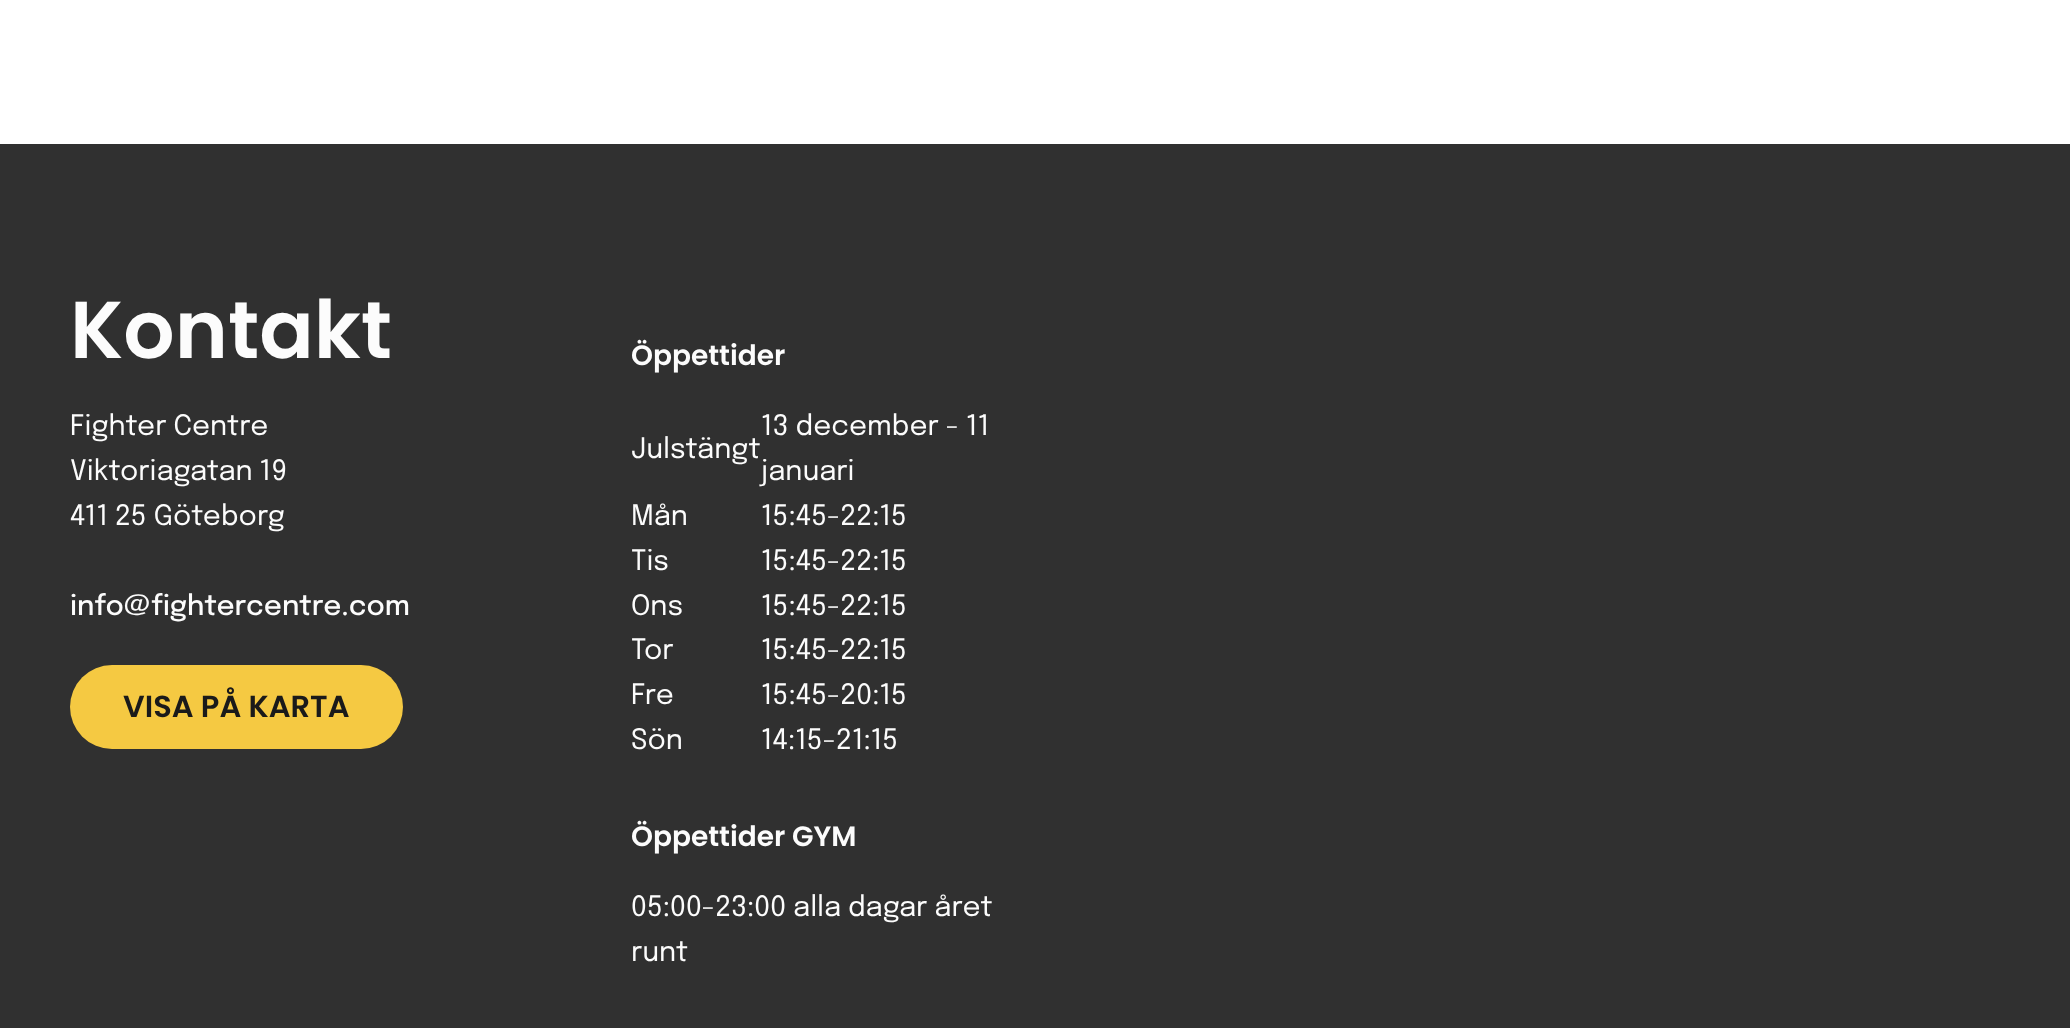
<svg xmlns="http://www.w3.org/2000/svg" xmlns:xlink="http://www.w3.org/1999/xlink" width="2070" height="1028" viewBox="0 0 2070 1028">
<style>
.cls-1{font:600 80.5px Poppins;fill:#fcfcfc}
.cls-2{font:28px Epilogue;fill:#fcfcfc}
.cls-3{font:500 28px Epilogue;fill:#fcfcfc}
.cls-4{font:600 30.5px Poppins;fill:#1a1a1a}
.cls-5{font:600 28px Poppins;fill:#fcfcfc}
</style>
<rect width="100%" height="100%" fill="#ffffff"/>
<rect fill="#303030" x="0" y="144" width="2070" height="884"/>
<rect fill="#f5c942" x="70" y="665" width="333" height="84" rx="42"/>
<text class="cls-1" x="70" y="358">Kontakt</text>
<text class="cls-2"><tspan x="70" y="435">Fighter Centre</tspan><tspan x="70" y="480">Viktoriagatan 19</tspan><tspan x="70" y="525">411 25 Göteborg</tspan></text>
<text class="cls-3" x="70" y="615">info@fightercentre.com</text>
<text class="cls-4" x="123" y="717">VISA PÅ KARTA</text>
<text class="cls-5" x="631" y="365">Öppettider</text>
<text class="cls-2" x="631" y="458">Julstängt</text>
<text class="cls-2"><tspan x="761" y="435">13 december - 11</tspan><tspan x="761" y="480">januari</tspan></text>
<text class="cls-2" x="631" y="525">Mån</text>
<text class="cls-2" x="761" y="525">15:45-22:15</text>
<text class="cls-2" x="631" y="570">Tis</text>
<text class="cls-2" x="761" y="570">15:45-22:15</text>
<text class="cls-2" x="631" y="615">Ons</text>
<text class="cls-2" x="761" y="615">15:45-22:15</text>
<text class="cls-2" x="631" y="659">Tor</text>
<text class="cls-2" x="761" y="659">15:45-22:15</text>
<text class="cls-2" x="631" y="704">Fre</text>
<text class="cls-2" x="761" y="704">15:45-20:15</text>
<text class="cls-2" x="631" y="749">Sön</text>
<text class="cls-2" x="761" y="749">14:15-21:15</text>
<text class="cls-5" x="631" y="846">Öppettider GYM</text>
<text class="cls-2"><tspan x="631" y="916">05:00-23:00 alla dagar året</tspan><tspan x="631" y="961">runt</tspan></text>
</svg>
